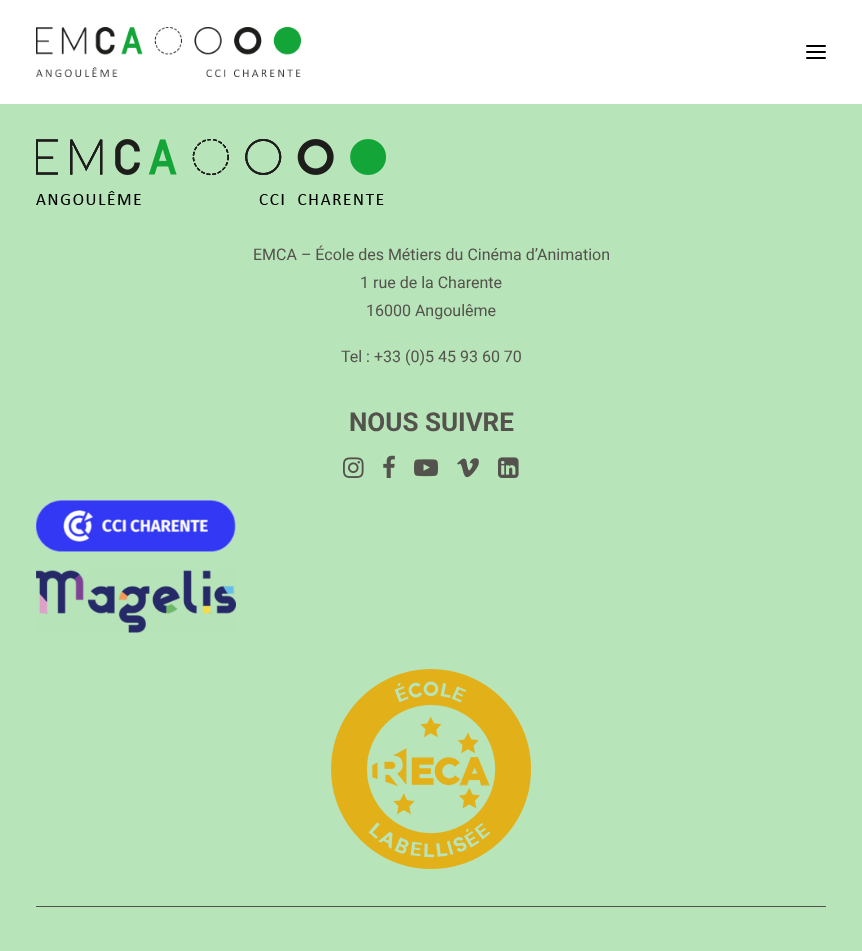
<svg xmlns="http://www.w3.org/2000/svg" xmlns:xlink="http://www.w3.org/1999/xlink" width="862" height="951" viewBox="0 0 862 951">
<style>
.cls-1{font:16px Roboto;fill:#53524c}
.cls-2{font:bold 26px Roboto;fill:#53524c}
</style>
<rect width="100%" height="100%" fill="#b8e4b9"/>
<rect fill="#ffffff" x="0" y="0" width="862" height="104"/>
<image xlink:href="image0.png" x="36" y="27" width="265" height="50"/>
<rect fill="#000000" x="806" y="51" width="20" height="2" rx="1"/>
<rect fill="#000000" x="806" y="45" width="20" height="2" rx="1"/>
<rect fill="#000000" x="806" y="57" width="20" height="2" rx="1"/>
<image xlink:href="image1.png" x="36" y="139" width="350" height="66"/>
<image xlink:href="image2.png" x="343" y="457" width="21" height="21"/>
<image xlink:href="image3.png" x="383" y="455" width="12" height="23"/>
<image xlink:href="image4.png" x="414" y="459" width="24" height="18"/>
<image xlink:href="image5.png" x="457" y="458" width="22" height="20"/>
<image xlink:href="image6.png" x="498" y="457" width="21" height="21"/>
<image xlink:href="image7.png" x="36" y="500" width="200" height="52"/>
<image xlink:href="image8.png" x="36" y="570" width="200" height="63"/>
<image xlink:href="image9.png" x="331" y="669" width="200" height="200"/>
<rect fill="#53524c" x="36" y="906" width="790" height="1"/>
<text class="cls-1" x="253" y="260">EMCA – École des Métiers du Cinéma d’Animation</text>
<text class="cls-1" x="360" y="288">1 rue de la Charente</text>
<text class="cls-1" x="366" y="316">16000 Angoulême</text>
<text class="cls-1" x="341" y="362">Tel : +33 (0)5 45 93 60 70</text>
<text class="cls-2" x="349" y="431">NOUS SUIVRE</text>
</svg>
